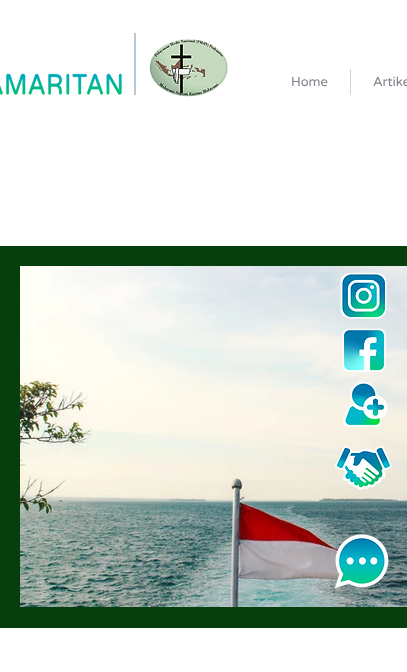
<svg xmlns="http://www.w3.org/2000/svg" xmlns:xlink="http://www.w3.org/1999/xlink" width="407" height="672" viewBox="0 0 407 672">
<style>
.cls-1{font:13px Varela Round;fill:#7f808a}
</style>
<rect width="100%" height="100%" fill="#ffffff"/>
<image xlink:href="image0.png" x="0" y="73" width="122" height="22"/>
<rect fill="#b7c8d4" x="134" y="33" width="2" height="62"/>
<image xlink:href="image1.png" x="149" y="39" width="79" height="58"/>
<rect fill="#cfd7dd" x="350" y="69" width="1" height="26"/>
<rect fill="#063f0d" x="0" y="246" width="407" height="382"/>
<image xlink:href="image2.png" x="20" y="266" width="387" height="341"/>
<image xlink:href="image3.png" x="340" y="272" width="47" height="47"/>
<image xlink:href="image4.png" x="342" y="328" width="44" height="44"/>
<image xlink:href="image5.png" x="343" y="381" width="45" height="46"/>
<image xlink:href="image6.png" x="335" y="445" width="57" height="45"/>
<image xlink:href="image7.png" x="334" y="534" width="55" height="55"/>
<text class="cls-1" x="291" y="86">Home</text>
<text class="cls-1" x="373" y="86">Artike</text>
</svg>
